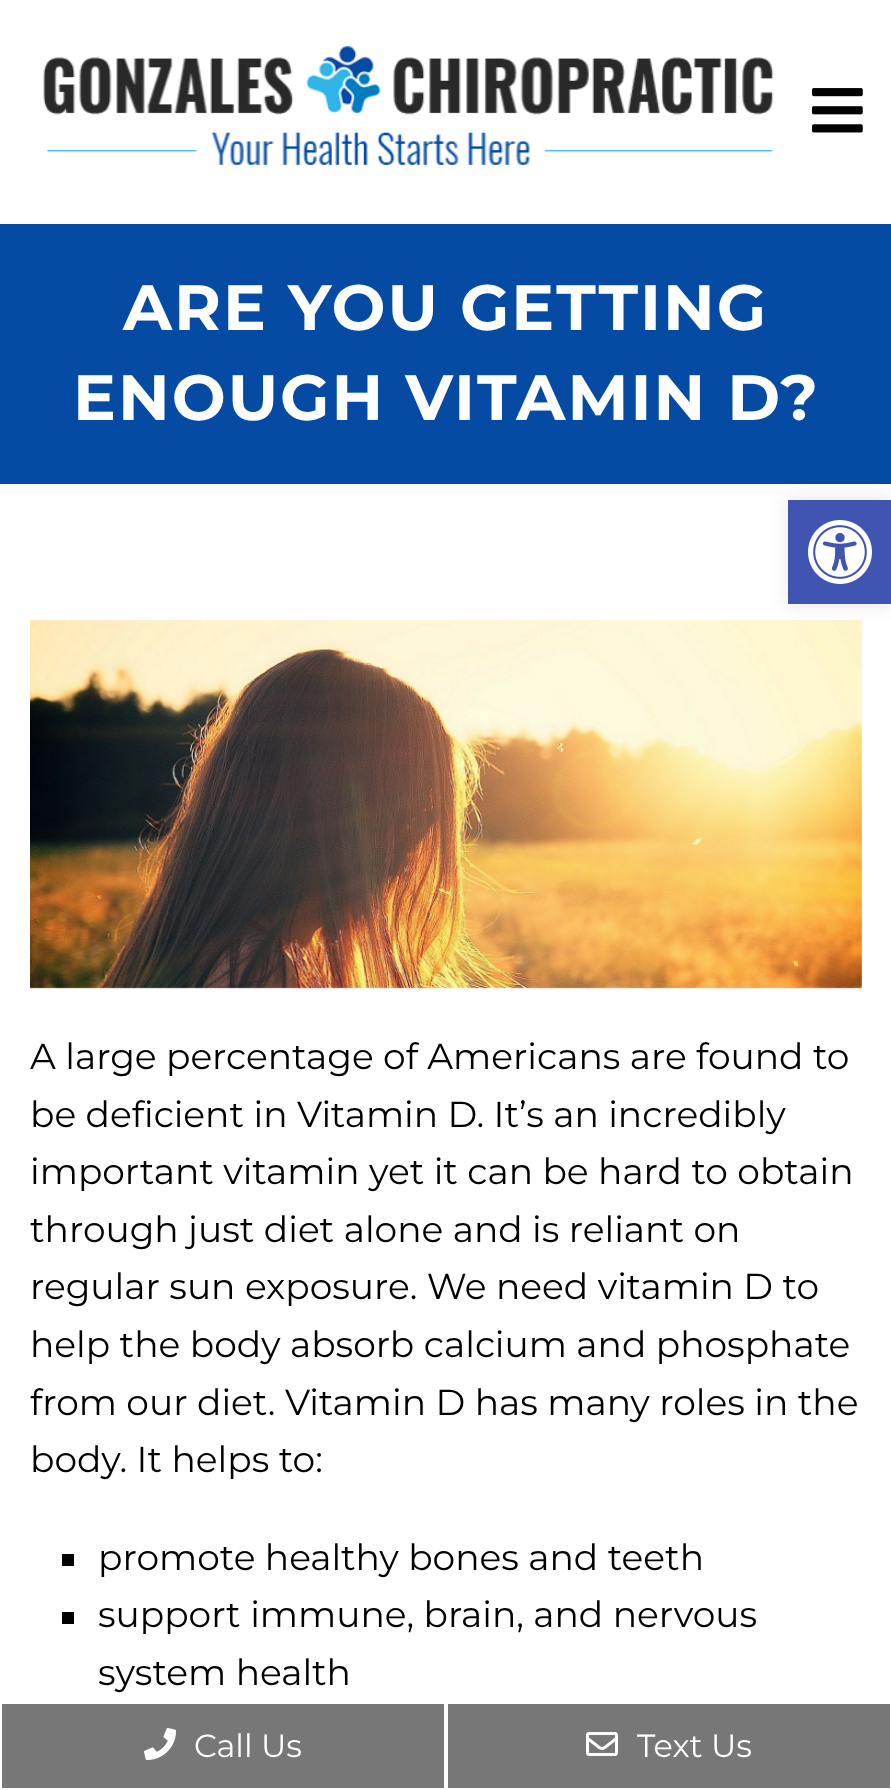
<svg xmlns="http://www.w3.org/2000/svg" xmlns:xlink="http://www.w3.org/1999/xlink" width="891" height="1790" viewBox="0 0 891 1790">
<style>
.cls-1{font:bold 64px Montserrat;letter-spacing:2px;fill:#ffffff}
.cls-2{font:36px Montserrat;fill:#000000}
.cls-3{font:32px Montserrat;fill:#ffffff}
</style>
<rect width="100%" height="100%" fill="#ffffff"/>
<image xlink:href="image0.png" x="43" y="46" width="731" height="119"/>
<image xlink:href="image1.png" x="812" y="88" width="51" height="45"/>
<rect fill="#054ba3" x="0" y="224" width="891" height="260"/>
<image xlink:href="image2.png" x="30" y="619" width="832" height="370"/>
<rect fill="#000000" x="62" y="1554" width="12" height="12"/>
<rect fill="#000000" x="62" y="1612" width="12" height="12"/>
<rect fill="#000000" fill-opacity="0.1" filter="blur(10px)" x="788" y="500" width="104" height="104"/>
<rect fill="#4054b2" x="788" y="500" width="103" height="104"/>
<image xlink:href="image3.png" x="808" y="520" width="64" height="64"/>
<rect fill="#777777" x="2" y="1704" width="442" height="84"/>
<image xlink:href="image4.png" x="144" y="1728" width="32" height="32"/>
<rect fill="#777777" x="448" y="1704" width="442" height="84"/>
<image xlink:href="image5.png" x="586" y="1732" width="32" height="24"/>
<text class="cls-1" x="123" y="330">ARE YOU GETTING</text>
<text class="cls-1" x="73" y="420">ENOUGH VITAMIN D?</text>
<text class="cls-2"><tspan x="30" y="1069">A large percentage of Americans are found to</tspan><tspan x="30" y="1127">be deficient in Vitamin D. It’s an incredibly</tspan><tspan x="30" y="1184">important vitamin yet it can be hard to obtain</tspan><tspan x="30" y="1242">through just diet alone and is reliant on</tspan><tspan x="30" y="1299">regular sun exposure. We need vitamin D to</tspan><tspan x="30" y="1357">help the body absorb calcium and phosphate</tspan><tspan x="30" y="1415">from our diet. Vitamin D has many roles in the</tspan><tspan x="30" y="1472">body. It helps to:</tspan></text>
<text class="cls-2"><tspan x="98" y="1570">promote healthy bones and teeth</tspan><tspan x="98" y="1627">support immune, brain, and nervous</tspan><tspan x="98" y="1685">system health</tspan></text>
<text class="cls-3" x="194" y="1757">Call Us</text>
<text class="cls-3" x="637" y="1757">Text Us</text>
</svg>
